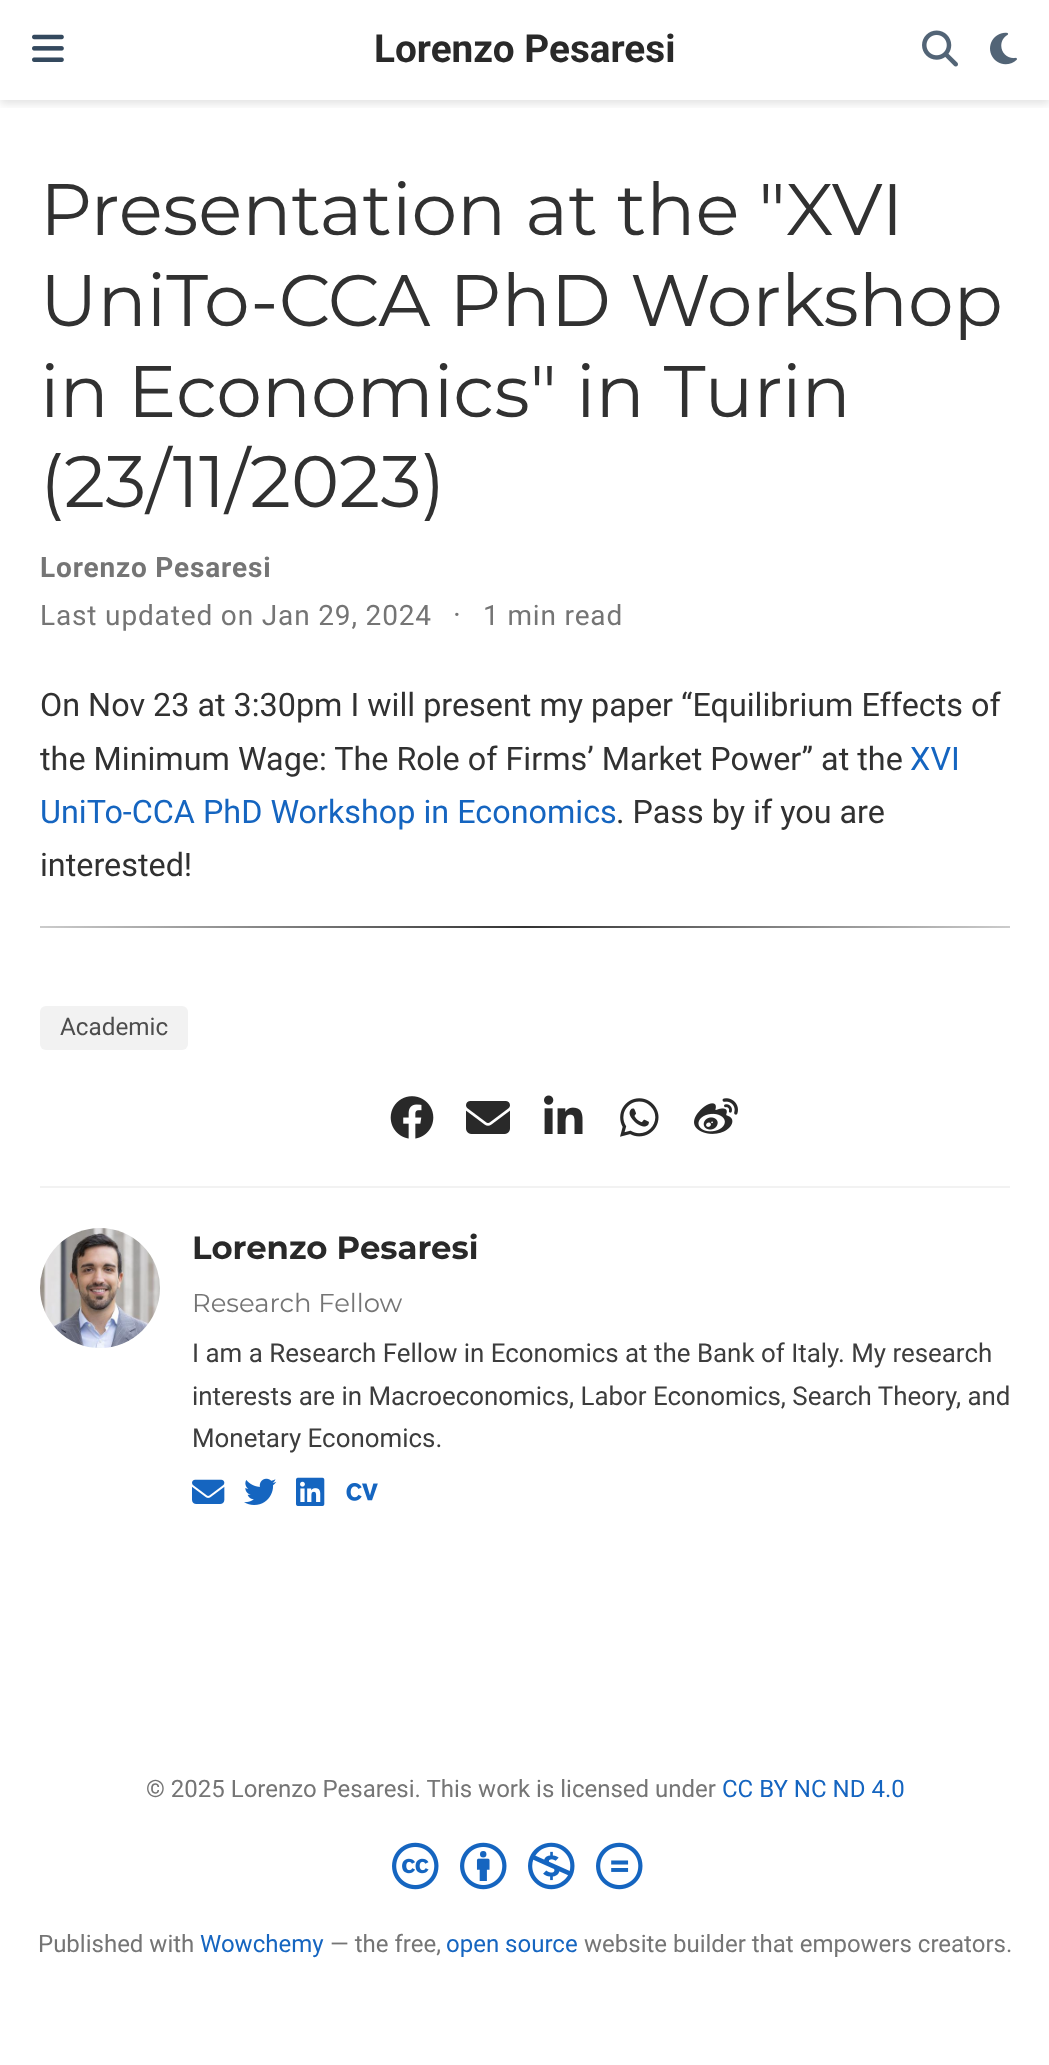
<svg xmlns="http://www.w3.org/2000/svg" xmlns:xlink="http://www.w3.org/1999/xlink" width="1049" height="2065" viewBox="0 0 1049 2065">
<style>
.cls-1{font:bold 38.75px Roboto;fill:#292929}
.cls-2{font:72.75px Montserrat;fill:#313131}
.cls-3{font:bold 28px Roboto;letter-spacing:0.85px;fill:#757575}
.cls-4{font:28px Roboto;letter-spacing:0.85px;fill:#757575}
.cls-5{font:30px Roboto;letter-spacing:0.85px;fill:#757575}
.cls-6{font:32.35px Roboto;fill:#313131}
.cls-7{font:32.35px Roboto;fill:#1565c0}
.cls-8{font:24.25px Roboto;fill:#4d4d4d}
.cls-9{font:bold 32.35px Montserrat;fill:#292929}
.cls-10{font:25.9px Montserrat;fill:#757575}
.cls-11{font:25.9px Roboto;fill:#3d3d3d}
.cls-12{font:24px Roboto;fill:#757575}
.cls-13{font:24px Roboto;fill:#1565c0}
</style>
<defs>
<clipPath id="clip1"><rect x="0" y="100" width="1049" height="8"/></clipPath>
<linearGradient id="g1" gradientUnits="userSpaceOnUse" x1="40" y1="927" x2="1010" y2="927"><stop offset="0" stop-color="#cccccc"/><stop offset="0.5" stop-color="#333333"/><stop offset="1" stop-color="#cccccc"/></linearGradient>
</defs>
<rect width="100%" height="100%" fill="#ffffff"/>
<g clip-path="url(#clip1)">
<rect fill="#000000" fill-opacity="0.11" filter="blur(4px)" x="0" y="4" width="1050" height="100"/>
</g>
<image xlink:href="image0.png" x="32" y="34" width="32" height="28"/>
<image xlink:href="image1.png" x="922" y="30" width="36" height="37"/>
<image xlink:href="image2.png" x="990" y="32" width="27" height="33"/>
<rect fill="url(#g1)" x="40" y="926" width="970" height="2"/>
<rect fill="#f2f2f2" x="40" y="1006" width="148" height="44" rx="6"/>
<image xlink:href="image3.png" x="390" y="1096" width="44" height="43"/>
<image xlink:href="image4.png" x="466" y="1101" width="44" height="33"/>
<image xlink:href="image5.png" x="544" y="1095" width="39" height="39"/>
<image xlink:href="image6.png" x="620" y="1098" width="39" height="39"/>
<image xlink:href="image7.png" x="694" y="1098" width="44" height="36"/>
<rect fill="#f2f2f2" x="40" y="1186" width="970" height="2"/>
<image xlink:href="image8.png" x="40" y="1228" width="120" height="120"/>
<image xlink:href="image9.png" x="192" y="1479" width="33" height="25"/>
<image xlink:href="image10.png" x="244" y="1478" width="33" height="27"/>
<image xlink:href="image11.png" x="296" y="1477" width="29" height="29"/>
<image xlink:href="image12.png" x="346" y="1483" width="32" height="18"/>
<image xlink:href="image13.png" x="392" y="1842" width="47" height="48"/>
<image xlink:href="image14.png" x="460" y="1842" width="47" height="48"/>
<image xlink:href="image15.png" x="528" y="1842" width="47" height="48"/>
<image xlink:href="image16.png" x="596" y="1842" width="47" height="48"/>
<text class="cls-1" x="374" y="62">Lorenzo Pesaresi</text>
<text class="cls-2"><tspan x="40" y="235">Presentation at the "XVI</tspan><tspan x="40" y="326">UniTo-CCA PhD Workshop</tspan><tspan x="40" y="417">in Economics" in Turin</tspan><tspan x="40" y="507">(23/11/2023)</tspan></text>
<text class="cls-3" x="40" y="577">Lorenzo Pesaresi</text>
<text class="cls-4" x="40" y="625">Last updated on Jan 29, 2024</text>
<text class="cls-5" x="453" y="625">·</text>
<text class="cls-4" x="483" y="625">1 min read</text>
<text class="cls-6"><tspan x="40" y="716">On Nov 23 at 3:30pm I will present my paper “Equilibrium Effects of</tspan><tspan x="40" y="770">the Minimum Wage: The Role of Firms’ Market Power” at the</tspan></text>
<text class="cls-7" x="910" y="770">XVI</text>
<text class="cls-7" x="40" y="823">UniTo-CCA PhD Workshop in Economics</text>
<text class="cls-6" x="616" y="823">. Pass by if you are</text>
<text class="cls-6" x="40" y="876">interested!</text>
<text class="cls-8" x="60" y="1035">Academic</text>
<text class="cls-9" x="192" y="1259">Lorenzo Pesaresi</text>
<text class="cls-10" x="192" y="1312">Research Fellow</text>
<text class="cls-11"><tspan x="192" y="1362">I am a Research Fellow in Economics at the Bank of Italy. My research</tspan><tspan x="192" y="1405">interests are in Macroeconomics, Labor Economics, Search Theory, and</tspan><tspan x="192" y="1447">Monetary Economics.</tspan></text>
<text class="cls-12" x="146" y="1797">© 2025 Lorenzo Pesaresi. This work is licensed under</text>
<text class="cls-13" x="722" y="1797">CC BY NC ND 4.0</text>
<text class="cls-12" x="38" y="1952">Published with</text>
<text class="cls-13" x="200" y="1952">Wowchemy</text>
<text class="cls-12" x="330" y="1952">— the free,</text>
<text class="cls-13" x="446" y="1952">open source</text>
<text class="cls-12" x="584" y="1952">website builder that empowers creators.</text>
</svg>
